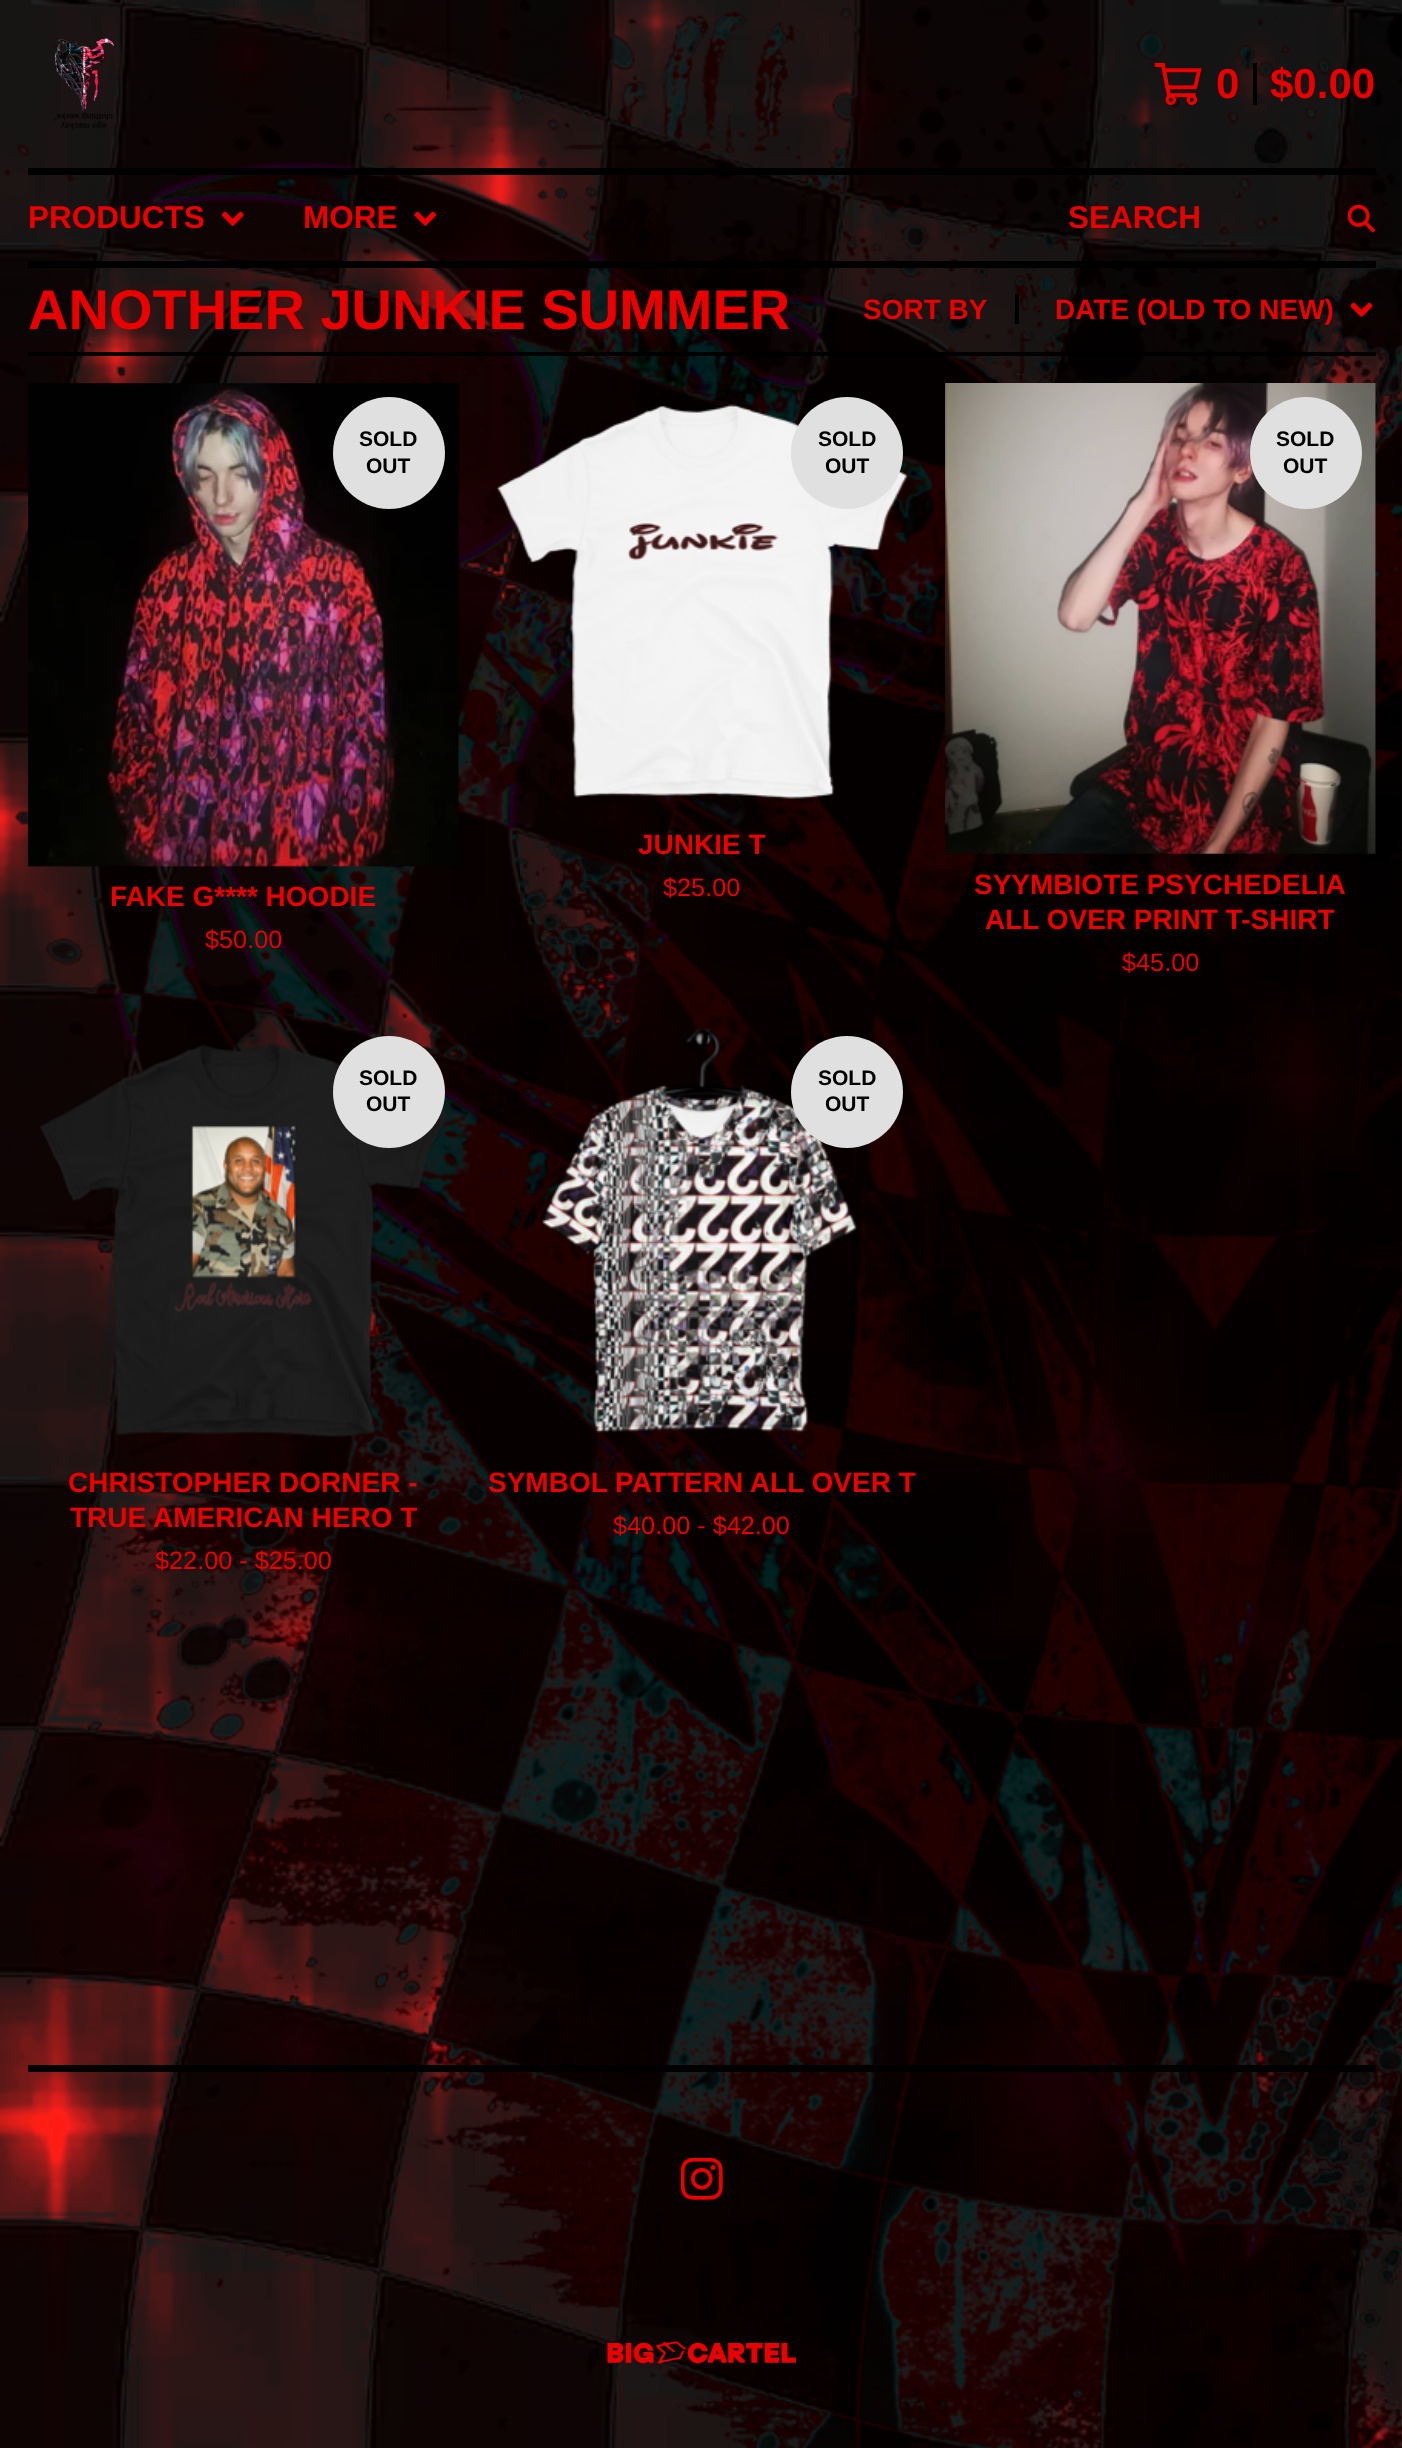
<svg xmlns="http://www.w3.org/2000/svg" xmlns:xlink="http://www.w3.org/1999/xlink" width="1402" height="2448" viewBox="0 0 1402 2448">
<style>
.cls-1{font:bold 42px Liberation Sans;fill:#eb0000}
.cls-2{font:bold 31.5px Liberation Sans;fill:#eb0000}
.cls-3{font:bold 56px Liberation Sans;fill:#eb0000}
.cls-4{font:bold 28px Liberation Sans;fill:#eb0000}
.cls-5{font:bold 21px Liberation Sans;fill:#000000}
.cls-6{font:25.25px Liberation Sans;fill:#eb0000}
</style>
<rect width="100%" height="100%" fill="#ffffff"/>
<image xlink:href="image0.png" x="0" y="0" width="1402" height="2448"/>
<rect fill="#000000" x="28" y="168" width="1348" height="7"/>
<image xlink:href="image1.png" x="53" y="38" width="62" height="92"/>
<image xlink:href="image2.png" x="1154" y="63" width="48" height="42"/>
<rect fill="#000000" x="1253" y="63" width="4" height="42"/>
<rect fill="#000000" x="28" y="261" width="1348" height="7"/>
<image xlink:href="image3.png" x="221" y="211" width="23" height="15"/>
<image xlink:href="image4.png" x="414" y="211" width="23" height="15"/>
<image xlink:href="image5.png" x="1348" y="205" width="28" height="28"/>
<rect fill="#000000" x="28" y="352" width="1348" height="4"/>
<rect fill="#000000" x="1015" y="294" width="4" height="30"/>
<image xlink:href="image6.png" x="1350" y="302" width="23" height="15"/>
<image xlink:href="image7.png" x="28" y="383" width="431" height="484"/>
<circle fill="#e0e0e0" cx="389" cy="453" r="56"/>
<image xlink:href="image8.png" x="496" y="404" width="412" height="395"/>
<circle fill="#e0e0e0" cx="847" cy="453" r="56"/>
<image xlink:href="image9.png" x="945" y="383" width="431" height="471"/>
<circle fill="#e0e0e0" cx="1306" cy="453" r="56"/>
<image xlink:href="image10.png" x="40" y="1043" width="408" height="394"/>
<circle fill="#e0e0e0" cx="389" cy="1092" r="56"/>
<image xlink:href="image11.png" x="541" y="1028" width="316" height="405"/>
<circle fill="#e0e0e0" cx="847" cy="1092" r="56"/>
<rect fill="#000000" x="28" y="2065" width="1348" height="7"/>
<image xlink:href="image12.png" x="681" y="2158" width="42" height="42"/>
<image xlink:href="image13.png" x="607" y="2341" width="189" height="23"/>
<text class="cls-1" x="1216" y="98">0</text>
<text class="cls-1" x="1270" y="98">$0.00</text>
<text class="cls-2" x="28" y="228">PRODUCTS</text>
<text class="cls-2" x="303" y="228">MORE</text>
<text class="cls-2" x="1068" y="228">SEARCH</text>
<text class="cls-3" x="28" y="329">ANOTHER JUNKIE SUMMER</text>
<text class="cls-4" x="863" y="319">SORT BY</text>
<text class="cls-4" x="1055" y="319">DATE (OLD TO NEW)</text>
<text class="cls-5" x="359" y="446">SOLD</text>
<text class="cls-5" x="366" y="473">OUT</text>
<text class="cls-4" x="110" y="906">FAKE G**** HOODIE</text>
<text class="cls-6" x="205" y="948">$50.00</text>
<text class="cls-5" x="818" y="446">SOLD</text>
<text class="cls-5" x="825" y="473">OUT</text>
<text class="cls-4" x="638" y="854">JUNKIE T</text>
<text class="cls-6" x="663" y="896">$25.00</text>
<text class="cls-5" x="1276" y="446">SOLD</text>
<text class="cls-5" x="1283" y="473">OUT</text>
<text class="cls-4" x="974" y="894">SYYMBIOTE PSYCHEDELIA</text>
<text class="cls-4" x="985" y="929">ALL OVER PRINT T-SHIRT</text>
<text class="cls-6" x="1122" y="971">$45.00</text>
<text class="cls-5" x="359" y="1085">SOLD</text>
<text class="cls-5" x="366" y="1111">OUT</text>
<text class="cls-4" x="68" y="1492">CHRISTOPHER DORNER -</text>
<text class="cls-4" x="70" y="1527">TRUE AMERICAN HERO T</text>
<text class="cls-6" x="155" y="1569">$22.00 - $25.00</text>
<text class="cls-5" x="818" y="1085">SOLD</text>
<text class="cls-5" x="825" y="1111">OUT</text>
<text class="cls-4" x="488" y="1492">SYMBOL PATTERN ALL OVER T</text>
<text class="cls-6" x="613" y="1534">$40.00 - $42.00</text>
</svg>
